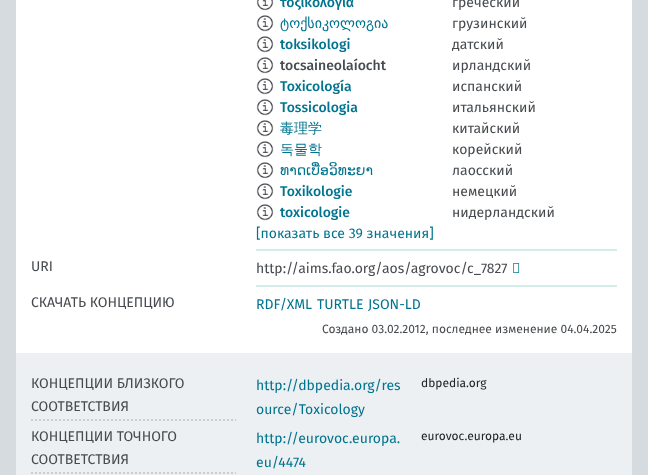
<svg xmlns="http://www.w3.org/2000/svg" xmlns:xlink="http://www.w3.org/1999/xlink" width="648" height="475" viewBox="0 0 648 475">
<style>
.cls-1{font:500 14px Fira Sans;fill:#00748f}
.cls-2{font:14px Fira Sans;fill:#474b4f}
.cls-3{font:14px DejaVu Sans;fill:#00748f}
.cls-4{font:500 14px Fira Sans;fill:#474b4f}
.cls-5{font:500 14px WenQuanYi Zen Hei;fill:#00748f}
.cls-6{font:14px Fira Sans;fill:#00748f}
.cls-7{font:12px Fira Sans;fill:#474b4f}
.cls-8{font:12px Fira Sans;fill:#212529}
</style>
<rect width="100%" height="100%" fill="#d5dbde"/>
<rect fill="#ffffff" x="16" y="0" width="616" height="353"/>
<rect fill="#d4edeb" x="256" y="249" width="361" height="2"/>
<image xlink:href="image0.png" x="256" y="0" width="18" height="11"/>
<image xlink:href="image1.png" x="256" y="15" width="18" height="17"/>
<image xlink:href="image1.png" x="256" y="36" width="18" height="17"/>
<image xlink:href="image1.png" x="256" y="57" width="18" height="17"/>
<image xlink:href="image1.png" x="256" y="78" width="18" height="17"/>
<image xlink:href="image1.png" x="256" y="99" width="18" height="17"/>
<image xlink:href="image1.png" x="256" y="120" width="18" height="17"/>
<image xlink:href="image1.png" x="256" y="141" width="18" height="17"/>
<image xlink:href="image1.png" x="256" y="162" width="18" height="17"/>
<image xlink:href="image2.png" x="256" y="183" width="18" height="17"/>
<image xlink:href="image2.png" x="256" y="204" width="18" height="17"/>
<rect fill="#d4edeb" x="256" y="285" width="361" height="2"/>
<image xlink:href="image3.png" x="513" y="263" width="7" height="10"/>
<rect fill="#edf0f2" x="16" y="353" width="616" height="122"/>
<path fill="none" stroke="#cccccc" stroke-width="2" stroke-dasharray="2 2" d="M31 420H236"/>
<path fill="none" stroke="#cccccc" stroke-width="2" stroke-dasharray="2 2" d="M31 473H236"/>
<text class="cls-1" x="280" y="7">τοξικολογία</text>
<text class="cls-2" x="452" y="7">греческий</text>
<text class="cls-3" x="280" y="28">ტოქსიკოლოგია</text>
<text class="cls-2" x="452" y="28">грузинский</text>
<text class="cls-1" x="280" y="49">toksikologi</text>
<text class="cls-2" x="452" y="49">датский</text>
<text class="cls-4" x="280" y="70">tocsaineolaíocht</text>
<text class="cls-2" x="452" y="70">ирландский</text>
<text class="cls-1" x="280" y="91">Toxicología</text>
<text class="cls-2" x="452" y="91">испанский</text>
<text class="cls-1" x="280" y="112">Tossicologia</text>
<text class="cls-2" x="452" y="112">итальянский</text>
<text class="cls-5" x="280" y="133">毒理学</text>
<text class="cls-2" x="452" y="133">китайский</text>
<text class="cls-5" x="280" y="154">독물학</text>
<text class="cls-2" x="452" y="154">корейский</text>
<text class="cls-3" x="280" y="175">ທາດເບື່ອວິທະຍາ</text>
<text class="cls-2" x="452" y="175">лаосский</text>
<text class="cls-1" x="280" y="196">Toxikologie</text>
<text class="cls-2" x="452" y="196">немецкий</text>
<text class="cls-1" x="280" y="217">toxicologie</text>
<text class="cls-2" x="452" y="217">нидерландский</text>
<text class="cls-6" x="256" y="238">[показать все 39 значения]</text>
<text class="cls-2" x="31" y="271">URI</text>
<text class="cls-2" x="256" y="273">http://aims.fao.org/aos/agrovoc/c_7827</text>
<text class="cls-2" x="31" y="307">СКАЧАТЬ КОНЦЕПЦИЮ</text>
<text class="cls-6" x="256" y="309">RDF/XML</text>
<text class="cls-6" x="317" y="309">TURTLE</text>
<text class="cls-6" x="368" y="309">JSON-LD</text>
<text class="cls-7" x="322" y="333">Создано 03.02.2012, последнее изменение 04.04.2025</text>
<text class="cls-2"><tspan x="31" y="388">КОНЦЕПЦИИ БЛИЗКОГО</tspan><tspan x="31" y="411">СООТВЕТСТВИЯ</tspan></text>
<text class="cls-6"><tspan x="256" y="390">http://dbpedia.org/res</tspan><tspan x="256" y="414">ource/Toxicology</tspan></text>
<text class="cls-8" x="421" y="387">dbpedia.org</text>
<text class="cls-2"><tspan x="31" y="441">КОНЦЕПЦИИ ТОЧНОГО</tspan><tspan x="31" y="464">СООТВЕТСТВИЯ</tspan></text>
<text class="cls-6"><tspan x="256" y="443">http://eurovoc.europa.</tspan><tspan x="256" y="467">eu/4474</tspan></text>
<text class="cls-8" x="421" y="440">eurovoc.europa.eu</text>
</svg>
